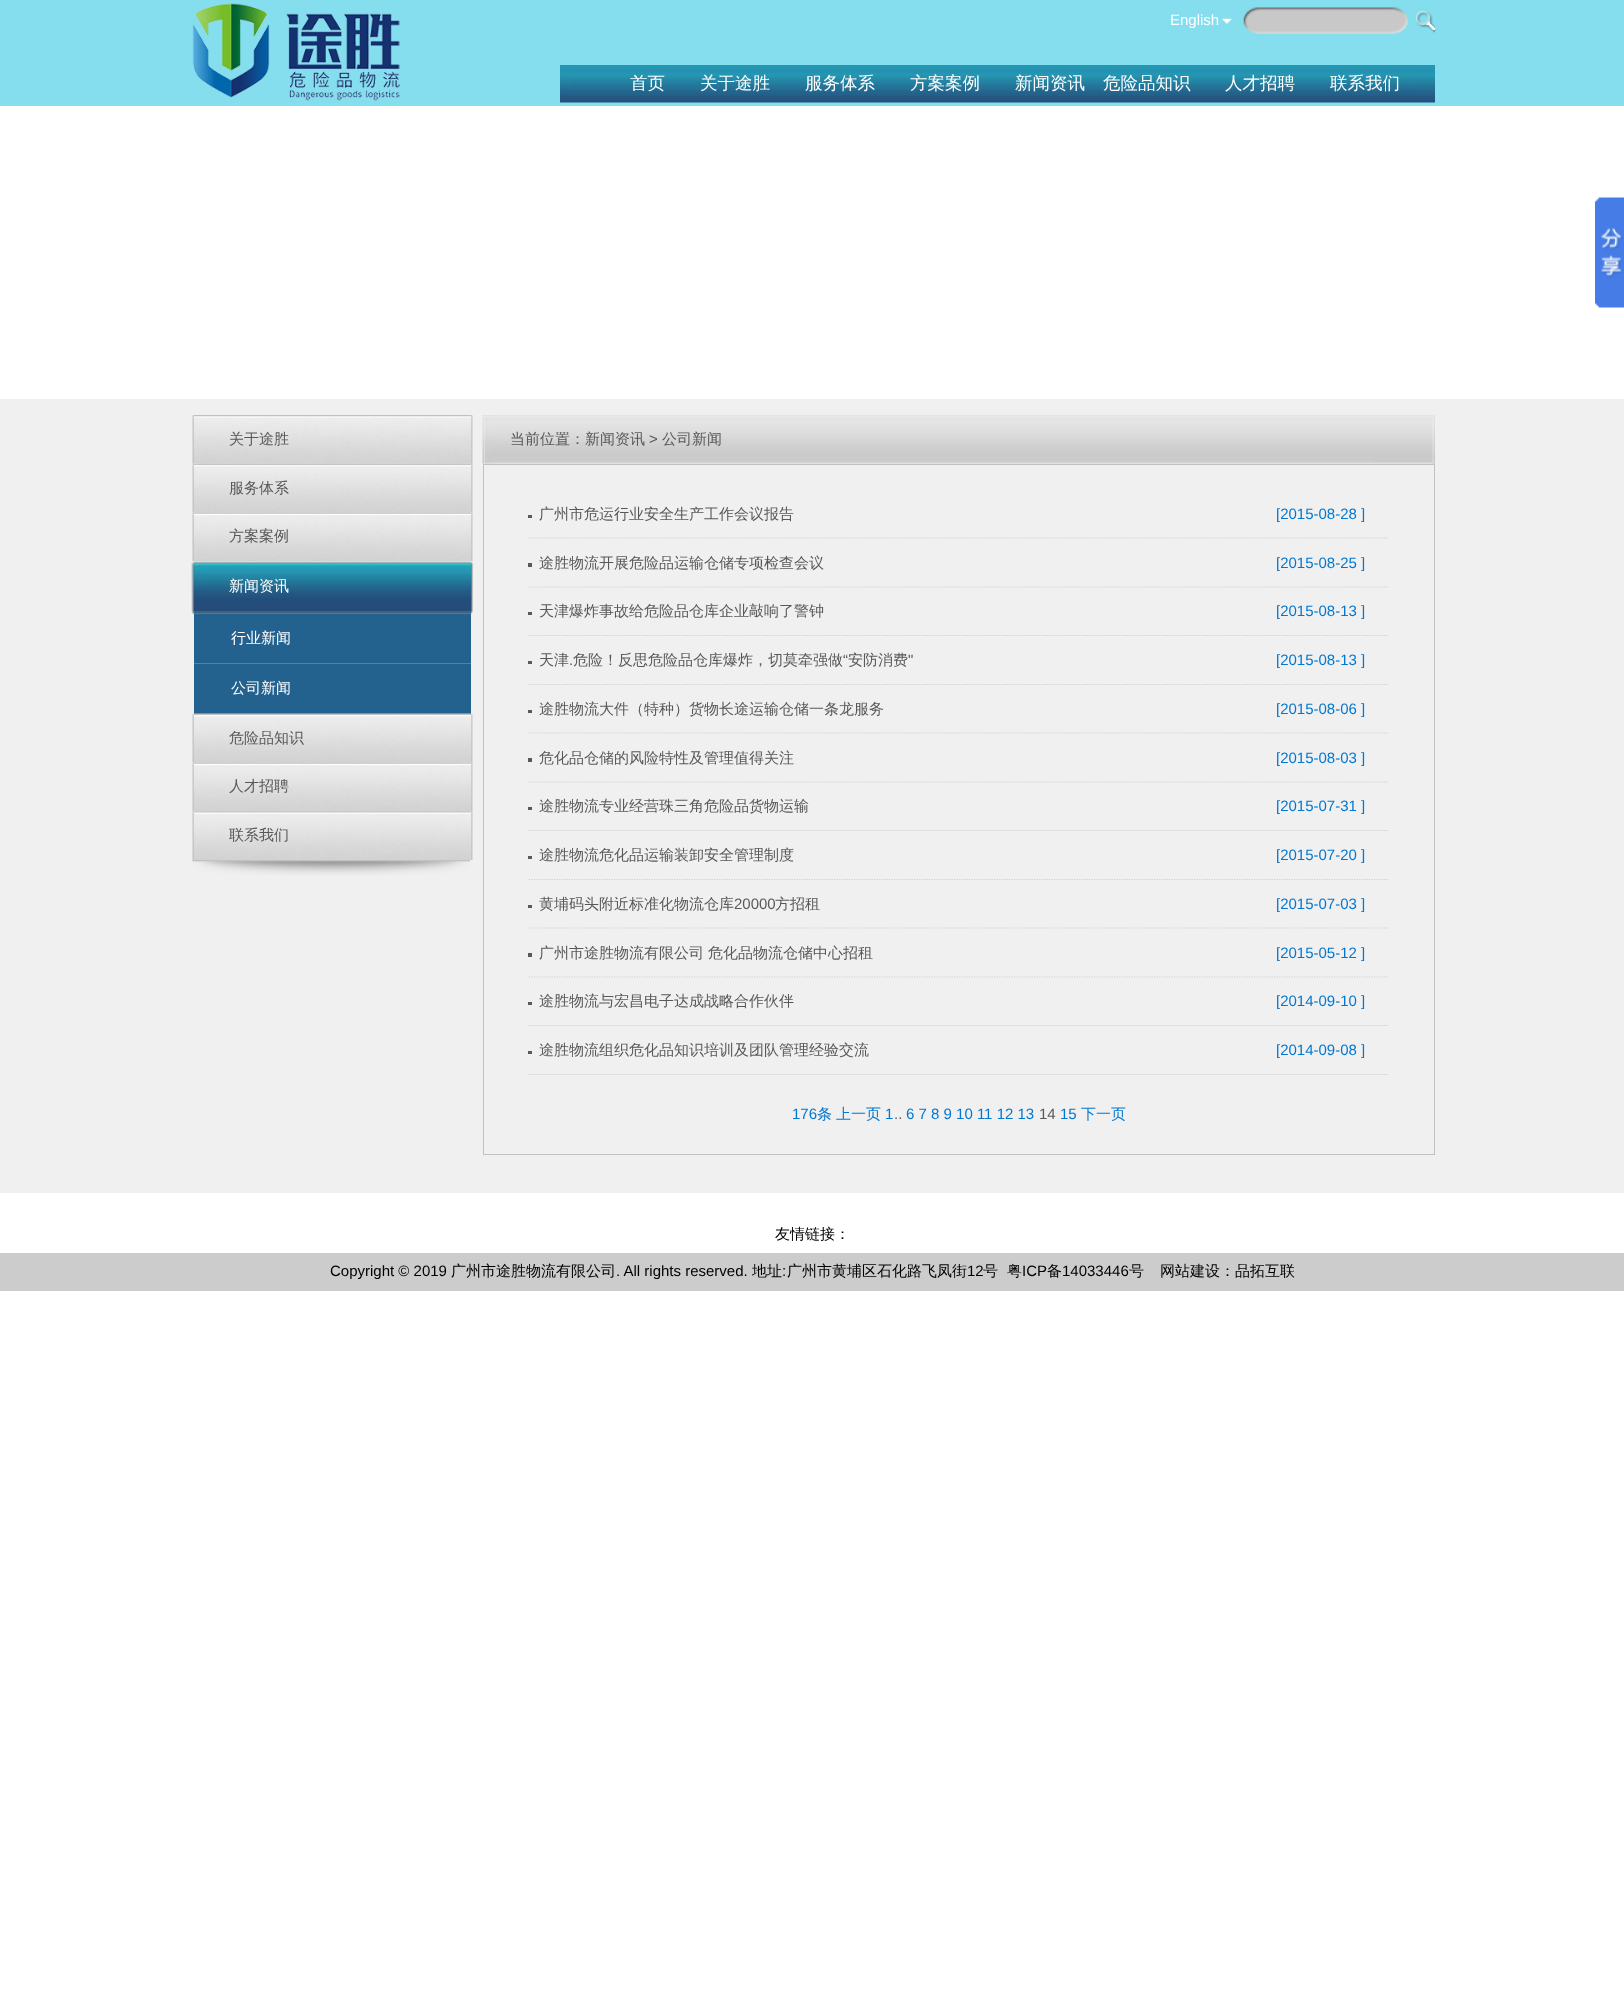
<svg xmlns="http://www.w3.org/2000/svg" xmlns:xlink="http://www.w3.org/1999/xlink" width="1624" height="1991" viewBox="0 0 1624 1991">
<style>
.cls-1{font:15px Liberation Sans;fill:#ffffff}
.cls-2{font:500 17.5px WenQuanYi Zen Hei;fill:#ffffff}
.cls-3{font:500 15px WenQuanYi Zen Hei;fill:#585858}
.cls-4{font:500 15px WenQuanYi Zen Hei;fill:#ffffff}
.cls-5{font:15px Liberation Sans;fill:#585858}
.cls-6{font:15px Liberation Sans;fill:#0077d0}
.cls-7{font:500 15px WenQuanYi Zen Hei;fill:#0077d0}
.cls-8{font:500 15px WenQuanYi Zen Hei;fill:#000000}
.cls-9{font:15px Liberation Sans;fill:#000000}
</style>
<rect width="100%" height="100%" fill="#ffffff"/>
<rect fill="#85deee" x="0" y="0" width="1624" height="106"/>
<image xlink:href="image0.png" x="192" y="3" width="208" height="98"/>
<image xlink:href="image1.png" x="1222" y="18" width="10" height="6"/>
<image xlink:href="image2.png" x="1243" y="7" width="165" height="27"/>
<image xlink:href="image3.png" x="1416" y="11" width="19" height="22"/>
<image xlink:href="image4.png" x="560" y="65" width="875" height="38"/>
<image xlink:href="image5.png" x="1595" y="197" width="29" height="111"/>
<rect fill="#f0f0f0" x="0" y="399" width="1624" height="794"/>
<image xlink:href="image6.png" x="192" y="415" width="281" height="49"/>
<image xlink:href="image7.png" x="192" y="463" width="281" height="50"/>
<image xlink:href="image8.png" x="192" y="512" width="281" height="50"/>
<image xlink:href="image9.png" x="191" y="561" width="282" height="53"/>
<rect fill="#23618f" x="194" y="614" width="277" height="49"/>
<rect fill="#6c7b87" x="194" y="663" width="277" height="1"/>
<rect fill="#23618f" x="194" y="664" width="277" height="49"/>
<rect fill="#6c7b87" x="194" y="713" width="277" height="1"/>
<image xlink:href="image10.png" x="192" y="713" width="281" height="50"/>
<image xlink:href="image11.png" x="192" y="762" width="281" height="50"/>
<image xlink:href="image12.png" x="192" y="811" width="281" height="49"/>
<image xlink:href="image13.png" x="192" y="860" width="278" height="15"/>
<image xlink:href="image14.png" x="482" y="415" width="953" height="49"/>
<rect fill="none" stroke="#c1c1c1" x="483.5" y="464.5" width="951" height="690"/>
<rect fill="#585858" x="528" y="515" width="4" height="3"/>
<path fill="none" stroke="#d0d0d0" stroke-width="1.2" stroke-dasharray="1.25 1.25" d="M529 538H1389"/>
<rect fill="#585858" x="528" y="563" width="4" height="4"/>
<path fill="none" stroke="#d0d0d0" stroke-width="1.2" stroke-dasharray="1.25 1.25" d="M529 587H1389"/>
<rect fill="#585858" x="528" y="612" width="4" height="3"/>
<path fill="none" stroke="#d0d0d0" stroke-width="1.2" stroke-dasharray="1.25 1.25" d="M529 635.5H1389"/>
<rect fill="#585858" x="528" y="661" width="4" height="3"/>
<path fill="none" stroke="#d0d0d0" stroke-width="1.2" stroke-dasharray="1.25 1.25" d="M529 684.5H1389"/>
<rect fill="#585858" x="528" y="710" width="4" height="3"/>
<path fill="none" stroke="#d0d0d0" stroke-width="1.2" stroke-dasharray="1.25 1.25" d="M529 733H1389"/>
<rect fill="#585858" x="528" y="758" width="4" height="4"/>
<path fill="none" stroke="#d0d0d0" stroke-width="1.2" stroke-dasharray="1.25 1.25" d="M529 782H1389"/>
<rect fill="#585858" x="528" y="807" width="4" height="3"/>
<path fill="none" stroke="#d0d0d0" stroke-width="1.2" stroke-dasharray="1.25 1.25" d="M529 830.5H1389"/>
<rect fill="#585858" x="528" y="856" width="4" height="3"/>
<path fill="none" stroke="#d0d0d0" stroke-width="1.2" stroke-dasharray="1.25 1.25" d="M529 879.5H1389"/>
<rect fill="#585858" x="528" y="905" width="4" height="3"/>
<path fill="none" stroke="#d0d0d0" stroke-width="1.2" stroke-dasharray="1.25 1.25" d="M529 928H1389"/>
<rect fill="#585858" x="528" y="953" width="4" height="4"/>
<path fill="none" stroke="#d0d0d0" stroke-width="1.2" stroke-dasharray="1.25 1.25" d="M529 977H1389"/>
<rect fill="#585858" x="528" y="1002" width="4" height="3"/>
<path fill="none" stroke="#d0d0d0" stroke-width="1.2" stroke-dasharray="1.25 1.25" d="M529 1025.5H1389"/>
<rect fill="#585858" x="528" y="1051" width="4" height="3"/>
<path fill="none" stroke="#d0d0d0" stroke-width="1.2" stroke-dasharray="1.25 1.25" d="M529 1074.5H1389"/>
<rect fill="#cccccc" x="0" y="1253" width="1624" height="38"/>
<text class="cls-1" x="1170" y="25">English</text>
<text class="cls-2" x="630" y="89">首页</text>
<text class="cls-2" x="700" y="89">关于途胜</text>
<text class="cls-2" x="805" y="89">服务体系</text>
<text class="cls-2" x="910" y="89">方案案例</text>
<text class="cls-2" x="1015" y="89">新闻资讯</text>
<text class="cls-2" x="1103" y="89">危险品知识</text>
<text class="cls-2" x="1225" y="89">人才招聘</text>
<text class="cls-2" x="1330" y="89">联系我们</text>
<text class="cls-3" x="229" y="444">关于途胜</text>
<text class="cls-3" x="229" y="493">服务体系</text>
<text class="cls-3" x="229" y="541">方案案例</text>
<text class="cls-4" x="229" y="591">新闻资讯</text>
<text class="cls-4" x="231" y="643">行业新闻</text>
<text class="cls-4" x="231" y="693">公司新闻</text>
<text class="cls-3" x="229" y="743">危险品知识</text>
<text class="cls-3" x="229" y="791">人才招聘</text>
<text class="cls-3" x="229" y="840">联系我们</text>
<text class="cls-3" x="510" y="444">当前位置：新闻资讯</text>
<text class="cls-5" x="649" y="444">&gt;</text>
<text class="cls-3" x="662" y="444">公司新闻</text>
<text class="cls-3" x="539" y="519">广州市危运行业安全生产工作会议报告</text>
<text class="cls-6" x="1276" y="519">[2015-08-28 ]</text>
<text class="cls-3" x="539" y="568">途胜物流开展危险品运输仓储专项检查会议</text>
<text class="cls-6" x="1276" y="568">[2015-08-25 ]</text>
<text class="cls-3" x="539" y="616">天津爆炸事故给危险品仓库企业敲响了警钟</text>
<text class="cls-6" x="1276" y="616">[2015-08-13 ]</text>
<text class="cls-3" x="539" y="665">天津</text>
<text class="cls-3" x="573" y="665">危险！反思危险品仓库爆炸，切莫牵强做</text>
<text class="cls-5" x="843" y="665">“</text>
<text class="cls-3" x="848" y="665">安防消费</text>
<text class="cls-5" x="908" y="665">"</text>
<text class="cls-5" x="569" y="665">.</text>
<text class="cls-6" x="1276" y="665">[2015-08-13 ]</text>
<text class="cls-3" x="539" y="714">途胜物流大件（特种）货物长途运输仓储一条龙服务</text>
<text class="cls-6" x="1276" y="714">[2015-08-06 ]</text>
<text class="cls-3" x="539" y="763">危化品仓储的风险特性及管理值得关注</text>
<text class="cls-6" x="1276" y="763">[2015-08-03 ]</text>
<text class="cls-3" x="539" y="811">途胜物流专业经营珠三角危险品货物运输</text>
<text class="cls-6" x="1276" y="811">[2015-07-31 ]</text>
<text class="cls-3" x="539" y="860">途胜物流危化品运输装卸安全管理制度</text>
<text class="cls-6" x="1276" y="860">[2015-07-20 ]</text>
<text class="cls-3" x="539" y="909">黄埔码头附近标准化物流仓库</text>
<text class="cls-5" x="734" y="909">20000</text>
<text class="cls-3" x="775" y="909">方招租</text>
<text class="cls-6" x="1276" y="909">[2015-07-03 ]</text>
<text class="cls-3" x="539" y="958">广州市途胜物流有限公司</text>
<text class="cls-3" x="708" y="958">危化品物流仓储中心招租</text>
<text class="cls-6" x="1276" y="958">[2015-05-12 ]</text>
<text class="cls-3" x="539" y="1006">途胜物流与宏昌电子达成战略合作伙伴</text>
<text class="cls-6" x="1276" y="1006">[2014-09-10 ]</text>
<text class="cls-3" x="539" y="1055">途胜物流组织危化品知识培训及团队管理经验交流</text>
<text class="cls-6" x="1276" y="1055">[2014-09-08 ]</text>
<text class="cls-6" x="792" y="1119">176</text>
<text class="cls-7" x="817" y="1119">条</text>
<text class="cls-7" x="836" y="1119">上一页</text>
<text class="cls-6" x="885" y="1119">1</text>
<text class="cls-5" x="894" y="1119">..</text>
<text class="cls-6" x="906" y="1119">6 7 8 9 10 11 12 13</text>
<text class="cls-5" x="1039" y="1119">14</text>
<text class="cls-6" x="1060" y="1119">15</text>
<text class="cls-7" x="1081" y="1119">下一页</text>
<text class="cls-8" x="775" y="1239">友情链接：</text>
<text class="cls-9" x="330" y="1276">Copyright © 2019</text>
<text class="cls-8" x="451" y="1276">广州市途胜物流有限公司</text>
<text class="cls-9" x="616" y="1276">. All rights reserved.</text>
<text class="cls-8" x="752" y="1276">地址</text>
<text class="cls-9" x="782" y="1276">:</text>
<text class="cls-8" x="787" y="1276">广州市黄埔区石化路飞凤街</text>
<text class="cls-9" x="967" y="1276">12</text>
<text class="cls-8" x="983" y="1276">号</text>
<text class="cls-8" x="1007" y="1276">粤</text>
<text class="cls-9" x="1022" y="1276">ICP</text>
<text class="cls-8" x="1047" y="1276">备</text>
<text class="cls-9" x="1062" y="1276">14033446</text>
<text class="cls-8" x="1129" y="1276">号</text>
<text class="cls-8" x="1160" y="1276">网站建设：品拓互联</text>
</svg>
